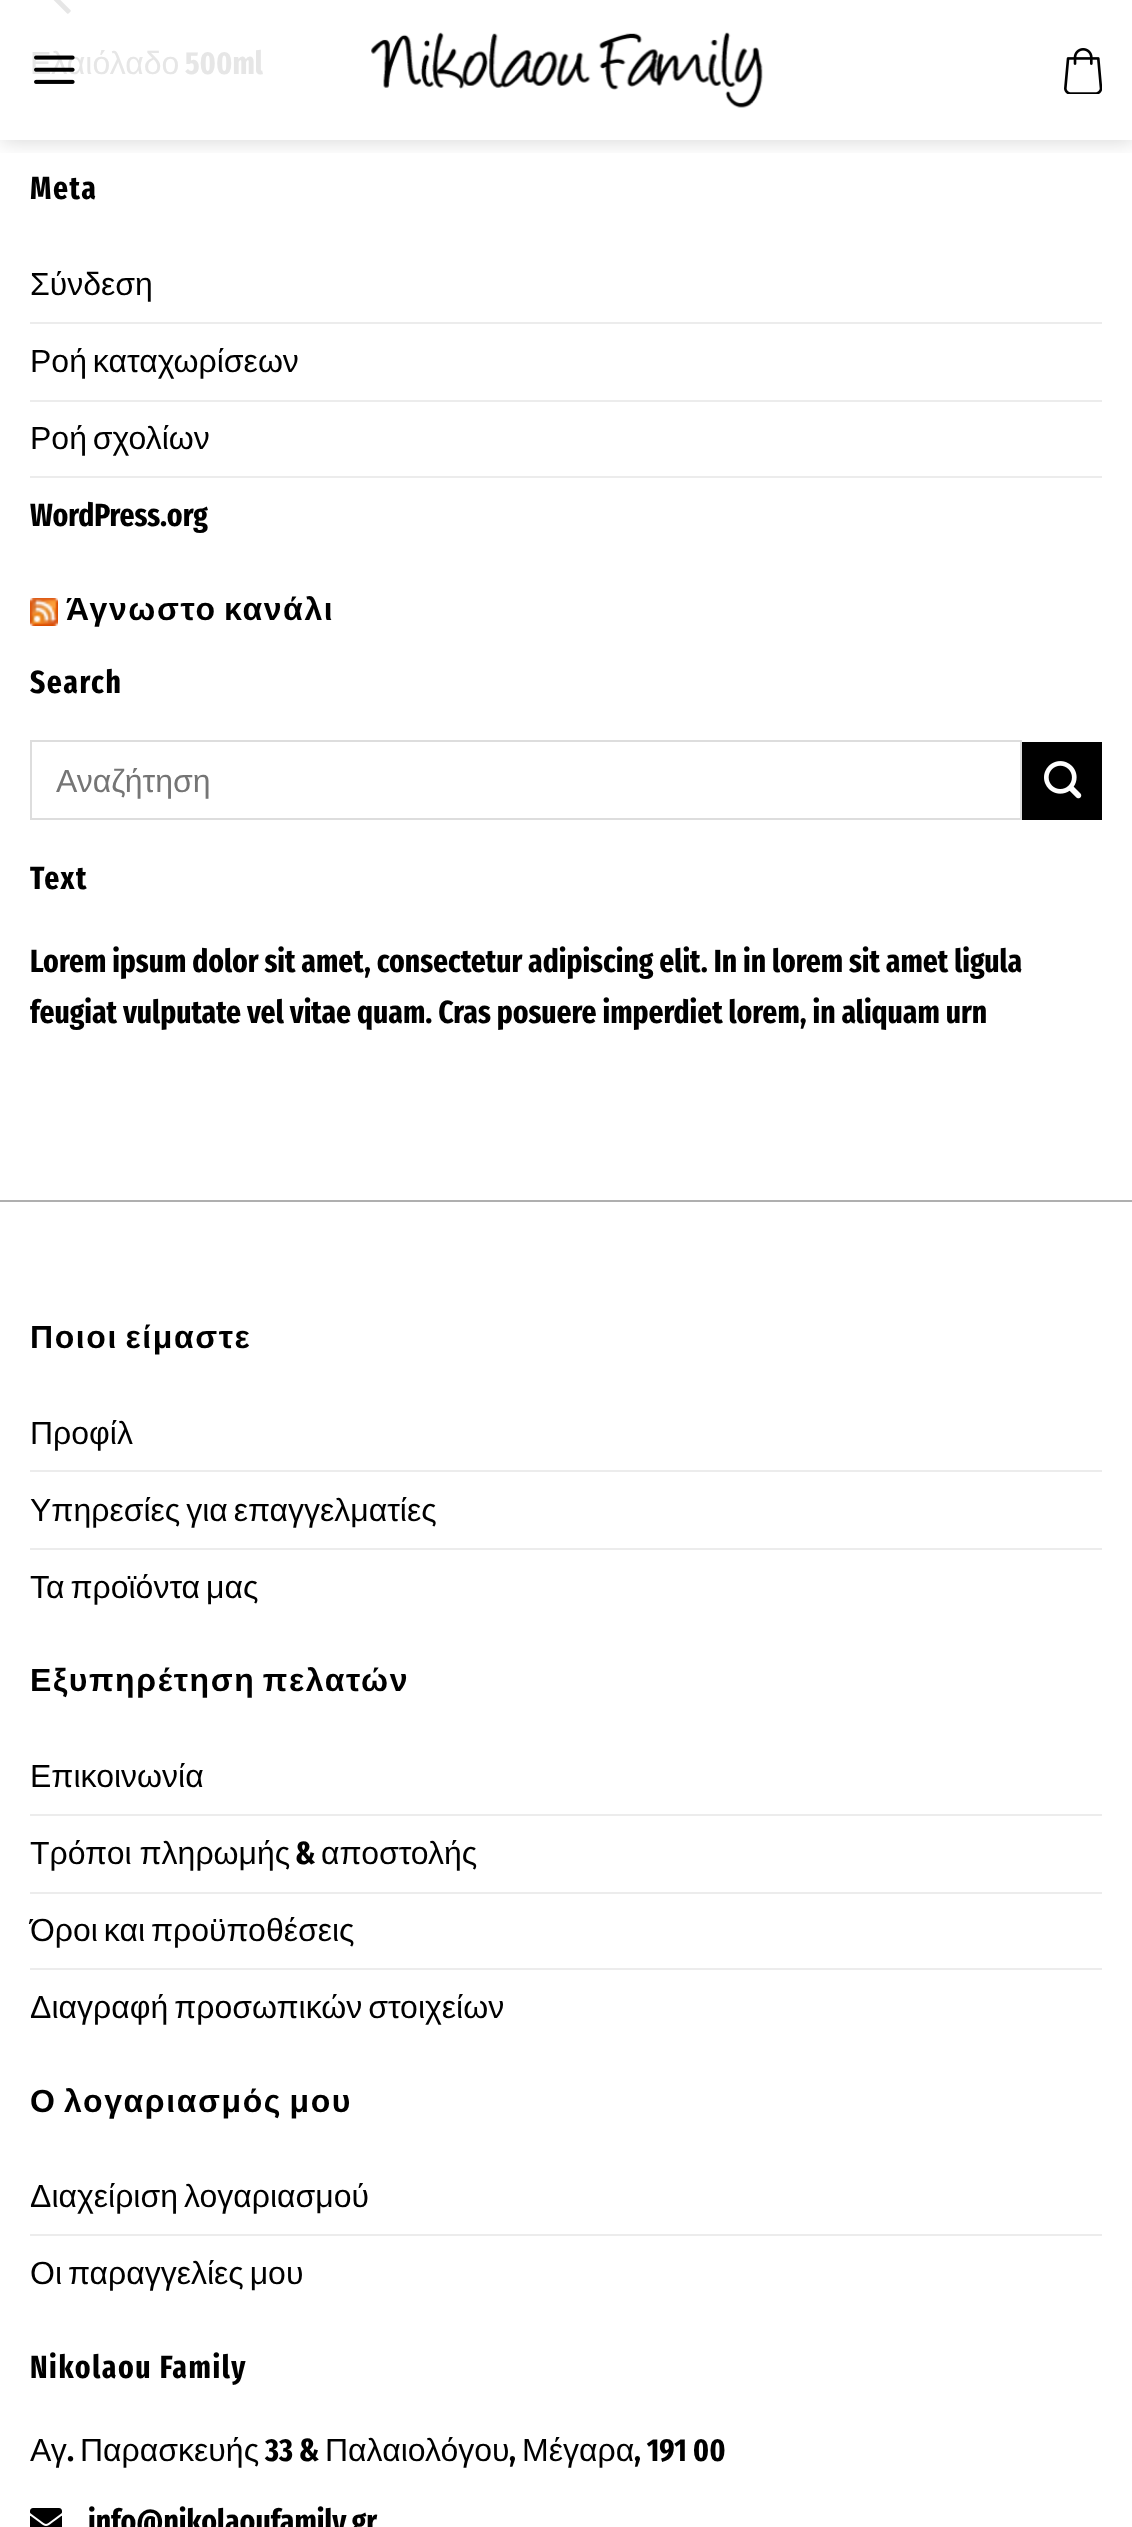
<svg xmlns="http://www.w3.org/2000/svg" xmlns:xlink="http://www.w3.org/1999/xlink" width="1132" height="2527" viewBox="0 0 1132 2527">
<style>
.cls-1{font:32px Liberation Sans;fill:#e6e6e6}
.cls-2{font:bold 32px Fira Sans Extra Condensed;fill:#e6e6e6}
.cls-3{font:bold 32px Fira Sans Extra Condensed;letter-spacing:1.6px;fill:#000000}
.cls-4{font:32px Liberation Sans;fill:#000000}
.cls-5{font:bold 32px Fira Sans Extra Condensed;fill:#000000}
.cls-6{font:bold 32px Liberation Sans;letter-spacing:1.6px;fill:#000000}
.cls-7{font:32px Liberation Sans;fill:#757575}
</style>
<defs>
<clipPath id="clip1"><rect x="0" y="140" width="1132" height="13"/></clipPath>
</defs>
<rect width="100%" height="100%" fill="#ffffff"/>
<image xlink:href="image3.png" x="53" y="0" width="18" height="14"/>
<g clip-path="url(#clip1)">
<rect fill="#000000" fill-opacity="0.15" filter="blur(10px)" x="2" y="2" width="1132" height="140"/>
</g>
<image xlink:href="image1.png" x="371" y="32" width="392" height="76"/>
<image xlink:href="image2.png" x="1064" y="48" width="38" height="46"/>
<rect fill="#ececec" x="30" y="322" width="1072" height="2"/>
<rect fill="#ececec" x="30" y="400" width="1072" height="2"/>
<rect fill="#ececec" x="30" y="476" width="1072" height="2"/>
<image xlink:href="image4.png" x="30" y="598" width="28" height="28"/>
<rect fill="none" stroke="#dddddd" stroke-width="2" x="31" y="741" width="990" height="78"/>
<rect fill="#000000" x="1022" y="742" width="80" height="78"/>
<image xlink:href="image5.png" x="1044" y="761" width="38" height="38"/>
<rect fill="#afafaf" x="0" y="1200" width="1132" height="2"/>
<rect fill="#ececec" x="30" y="1470" width="1072" height="2"/>
<rect fill="#ececec" x="30" y="1548" width="1072" height="2"/>
<rect fill="#ececec" x="30" y="1814" width="1072" height="2"/>
<rect fill="#ececec" x="30" y="1892" width="1072" height="2"/>
<rect fill="#ececec" x="30" y="1968" width="1072" height="2"/>
<rect fill="#ececec" x="30" y="2234" width="1072" height="2"/>
<image xlink:href="image6.png" x="30" y="2508" width="32" height="19"/>
<text class="cls-1" x="30" y="74">Ελαιόλαδο</text>
<image xlink:href="image0.png" x="34" y="55" width="41" height="29"/>
<text class="cls-2" x="185" y="74">500ml</text>
<text class="cls-3" x="30" y="199">Meta</text>
<text class="cls-4" x="30" y="295">Σύνδεση</text>
<text class="cls-4" x="30" y="372" word-spacing="-3">Ροή καταχωρίσεων</text>
<text class="cls-4" x="30" y="449" word-spacing="-3">Ροή σχολίων</text>
<text class="cls-5" x="30" y="526">WordPress.org</text>
<text class="cls-6" x="66" y="620" word-spacing="-3">Άγνωστο κανάλι</text>
<text class="cls-3" x="30" y="693">Search</text>
<text class="cls-7" x="56" y="792">Αναζήτηση</text>
<text class="cls-3" x="30" y="889">Text</text>
<text class="cls-5"><tspan x="30" y="972">Lorem ipsum dolor sit amet, consectetur adipiscing elit. In in lorem sit amet ligula</tspan><tspan x="30" y="1023">feugiat vulputate vel vitae quam. Cras posuere imperdiet lorem, in aliquam urn</tspan></text>
<text class="cls-6" x="30" y="1348" word-spacing="-3">Ποιοι είμαστε</text>
<text class="cls-4" x="30" y="1444">Προφίλ</text>
<text class="cls-4" x="30" y="1521" word-spacing="-3">Υπηρεσίες για επαγγελματίες</text>
<text class="cls-4" x="30" y="1598" word-spacing="-3">Τα προϊόντα μας</text>
<text class="cls-6" x="30" y="1691" word-spacing="-3">Εξυπηρέτηση πελατών</text>
<text class="cls-4" x="30" y="1787">Επικοινωνία</text>
<text class="cls-4" x="30" y="1864" word-spacing="-1">Τρόποι πληρωμής</text>
<text class="cls-5" x="295" y="1864">&amp;</text>
<text class="cls-4" x="321" y="1864">αποστολής</text>
<text class="cls-4" x="30" y="1941" word-spacing="-3">Όροι και προϋποθέσεις</text>
<text class="cls-4" x="30" y="2018" word-spacing="-3">Διαγραφή προσωπικών στοιχείων</text>
<text class="cls-6" x="30" y="2112" word-spacing="-3">Ο λογαριασμός μου</text>
<text class="cls-4" x="30" y="2207" word-spacing="-3">Διαχείριση λογαριασμού</text>
<text class="cls-4" x="30" y="2284" word-spacing="-3">Οι παραγγελίες μου</text>
<text class="cls-3" x="30" y="2378">Nikolaou Family</text>
<text class="cls-4" x="30" y="2461">Αγ</text>
<text class="cls-5" x="67" y="2461">.</text>
<text class="cls-4" x="80" y="2461">Παρασκευής</text>
<text class="cls-5" x="265" y="2461">33 &amp;</text>
<text class="cls-4" x="325" y="2461">Παλαιολόγου</text>
<text class="cls-5" x="509" y="2461">,</text>
<text class="cls-4" x="522" y="2461">Μέγαρα</text>
<text class="cls-5" x="634" y="2461">, 191 00</text>
<text class="cls-5" x="88" y="2532">info@nikolaoufamily.gr</text>
</svg>
